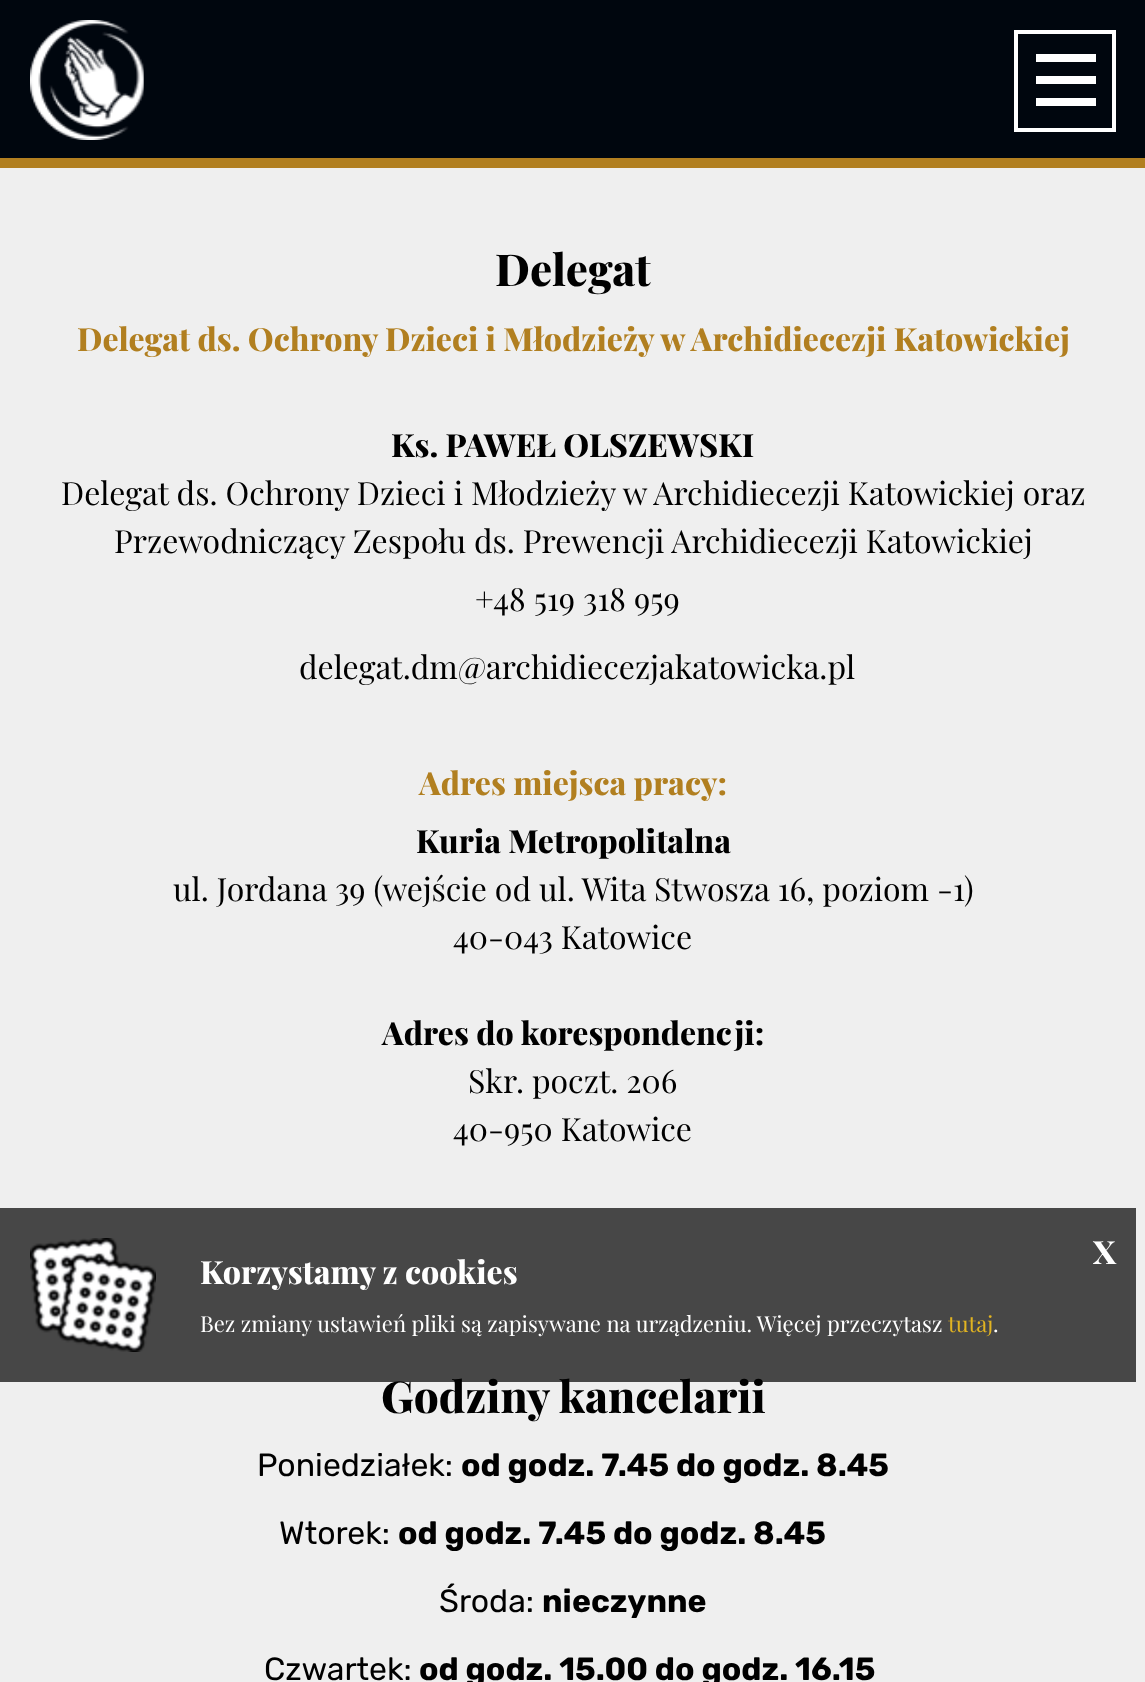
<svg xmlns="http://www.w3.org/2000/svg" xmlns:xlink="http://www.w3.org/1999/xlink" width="1145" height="1682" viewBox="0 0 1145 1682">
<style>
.cls-1{font:800 44px Playfair Display;fill:#000000}
.cls-2{font:800 32px Playfair Display;fill:#b17f20}
.cls-3{font:800 32px Playfair Display;fill:#000000}
.cls-4{font:32px Playfair Display;fill:#000000}
.cls-5{font:32px Rubik;fill:#000000}
.cls-6{font:bold 32px Rubik;fill:#000000}
.cls-7{font:800 32px Playfair Display;fill:#ffffff}
.cls-8{font:22px Playfair Display;fill:#ffffff}
.cls-9{font:22px Playfair Display;fill:#e2b421}
</style>
<rect width="100%" height="100%" fill="#efefef"/>
<rect fill="#00060e" x="0" y="0" width="1145" height="158"/>
<image xlink:href="image0.png" x="30" y="20" width="114" height="120"/>
<rect fill="none" stroke="#ffffff" stroke-width="4" x="1016" y="32" width="98" height="98"/>
<rect fill="#ffffff" x="1036" y="54" width="60" height="8"/>
<rect fill="#ffffff" x="1036" y="76" width="60" height="8"/>
<rect fill="#ffffff" x="1036" y="98" width="60" height="8"/>
<rect fill="#b17f20" x="0" y="158" width="1145" height="10"/>
<text class="cls-1" x="495" y="286">Delegat</text>
<text class="cls-2" x="77" y="351">Delegat ds. Ochrony Dzieci i Młodzieży w Archidiecezji Katowickiej</text>
<text class="cls-3" x="391" y="457">Ks. PAWEŁ OLSZEWSKI</text>
<text class="cls-4" x="61" y="505">Delegat ds. Ochrony Dzieci i Młodzieży w Archidiecezji Katowickiej oraz</text>
<text class="cls-4" x="114" y="553">Przewodniczący Zespołu ds. Prewencji Archidiecezji Katowickiej</text>
<text class="cls-4" x="475" y="611">+48 519 318 959</text>
<text class="cls-4" x="299" y="679">delegat.dm@archidiecezjakatowicka.pl</text>
<text class="cls-2" x="419" y="795">Adres miejsca pracy:</text>
<text class="cls-3" x="416" y="853">Kuria Metropolitalna</text>
<text class="cls-4" x="173" y="901">ul. Jordana 39 (wejście od ul. Wita Stwosza 16, poziom -1)</text>
<text class="cls-4" x="453" y="949">40-043 Katowice</text>
<text class="cls-3" x="382" y="1045">Adres do korespondencji:</text>
<text class="cls-4" x="468" y="1093">Skr. poczt. 206</text>
<text class="cls-4" x="453" y="1141">40-950 Katowice</text>
<text class="cls-1" x="381" y="1413">Godziny kancelarii</text>
<text class="cls-5" x="257" y="1476">Poniedziałek:</text>
<text class="cls-6" x="461" y="1476">od godz. 7.45 do godz. 8.45</text>
<text class="cls-5" x="279" y="1544">Wtorek:</text>
<text class="cls-6" x="398" y="1544">od godz. 7.45 do godz. 8.45</text>
<text class="cls-5" x="439" y="1612">Środa:</text>
<text class="cls-6" x="542" y="1612">nieczynne</text>
<text class="cls-5" x="264" y="1680">Czwartek:</text>
<text class="cls-6" x="419" y="1680">od godz. 15.00 do godz. 16.15</text>
<rect fill="#000000" fill-opacity="0.7" x="0" y="1208" width="1136" height="174"/>
<image xlink:href="image1.png" x="30" y="1238" width="126" height="114"/>
<text class="cls-7" x="1093" y="1264">X</text>
<text class="cls-7" x="200" y="1284">Korzystamy z cookies</text>
<text class="cls-8" x="200" y="1332">Bez zmiany ustawień pliki są zapisywane na urządzeniu. Więcej przeczytasz</text>
<text class="cls-9" x="948" y="1332">tutaj</text>
<text class="cls-8" x="993" y="1332">.</text>
</svg>
